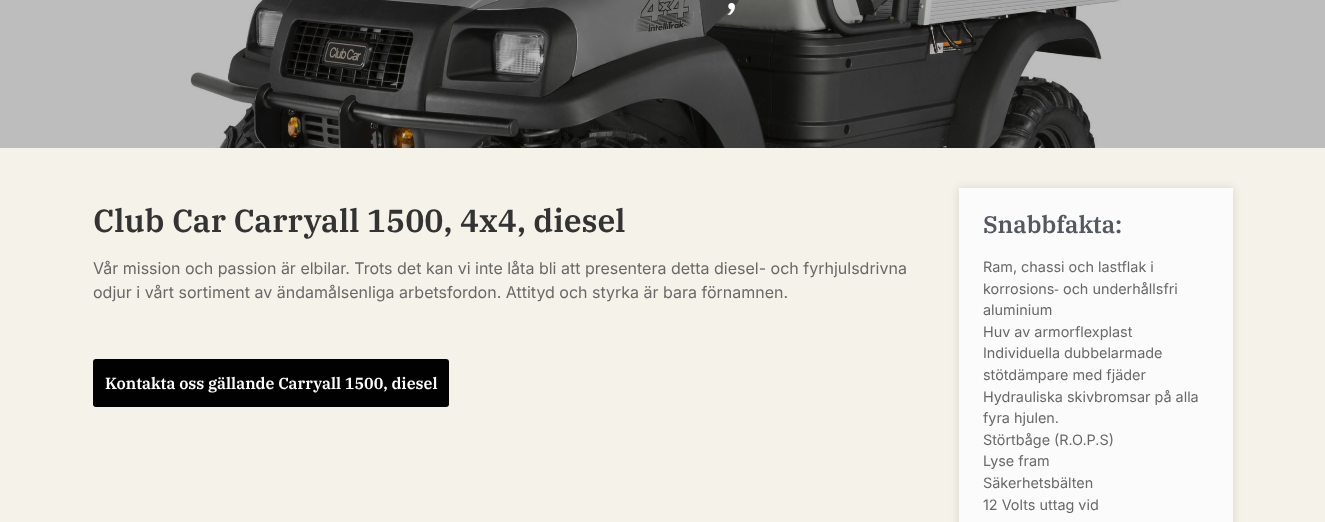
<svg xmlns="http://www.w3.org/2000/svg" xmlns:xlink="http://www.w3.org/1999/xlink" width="1325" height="522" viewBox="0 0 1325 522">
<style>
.cls-1{font:600 40px IBM Plex Serif;fill:#ffffff}
.cls-2{font:600 32px IBM Plex Serif;fill:#333333}
.cls-3{font:16px Inter;fill:#686868}
.cls-4{font:600 16px IBM Plex Serif;fill:#ffffff}
.cls-5{font:600 24px IBM Plex Serif;fill:#54595f}
.cls-6{font:14.4px Inter;fill:#686868}
.cls-7{font:14.4px Liberation Sans;fill:#686868}
</style>
<rect width="100%" height="100%" fill="#f5f3e9"/>
<image xlink:href="image0.png" x="0" y="0" width="1325" height="148"/>
<rect fill="#020101" x="93" y="359" width="356" height="48" rx="3"/>
<rect fill="#000000" fill-opacity="0.12" filter="blur(5px)" x="959" y="188" width="274" height="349"/>
<rect fill="#fbfbfb" x="959" y="188" width="274" height="334"/>
<text class="cls-1" x="726" y="9">,</text>
<text class="cls-2" x="93" y="232">Club Car Carryall 1500, 4x4, diesel</text>
<text class="cls-3"><tspan x="93" y="274">Vår mission och passion är elbilar. Trots det kan vi inte låta bli att presentera detta diesel- och fyrhjulsdrivna</tspan><tspan x="93" y="298">odjur i vårt sortiment av ändamålsenliga arbetsfordon. Attityd och styrka är bara förnamnen.</tspan></text>
<text class="cls-4" x="105" y="389">Kontakta oss gällande Carryall 1500, diesel</text>
<text class="cls-5" x="983" y="233">Snabbfakta:</text>
<text class="cls-6"><tspan x="983" y="272">Ram, chassi och lastflak i</tspan><tspan x="983" y="294">korrosions</tspan></text>
<text class="cls-7" x="1054" y="294">‐</text>
<text class="cls-6" x="1063" y="294">och underhållsfri</text>
<text class="cls-6"><tspan x="983" y="315">aluminium</tspan><tspan x="983" y="337">Huv av armorflexplast</tspan><tspan x="983" y="358">Individuella dubbelarmade</tspan><tspan x="983" y="380">stötdämpare med fjäder</tspan><tspan x="983" y="402">Hydrauliska skivbromsar på alla</tspan><tspan x="983" y="423">fyra hjulen.</tspan><tspan x="983" y="445">Störtbåge (R.O.P.S)</tspan><tspan x="983" y="466">Lyse fram</tspan><tspan x="983" y="488">Säkerhetsbälten</tspan><tspan x="983" y="510">12 Volts uttag vid</tspan></text>
</svg>
